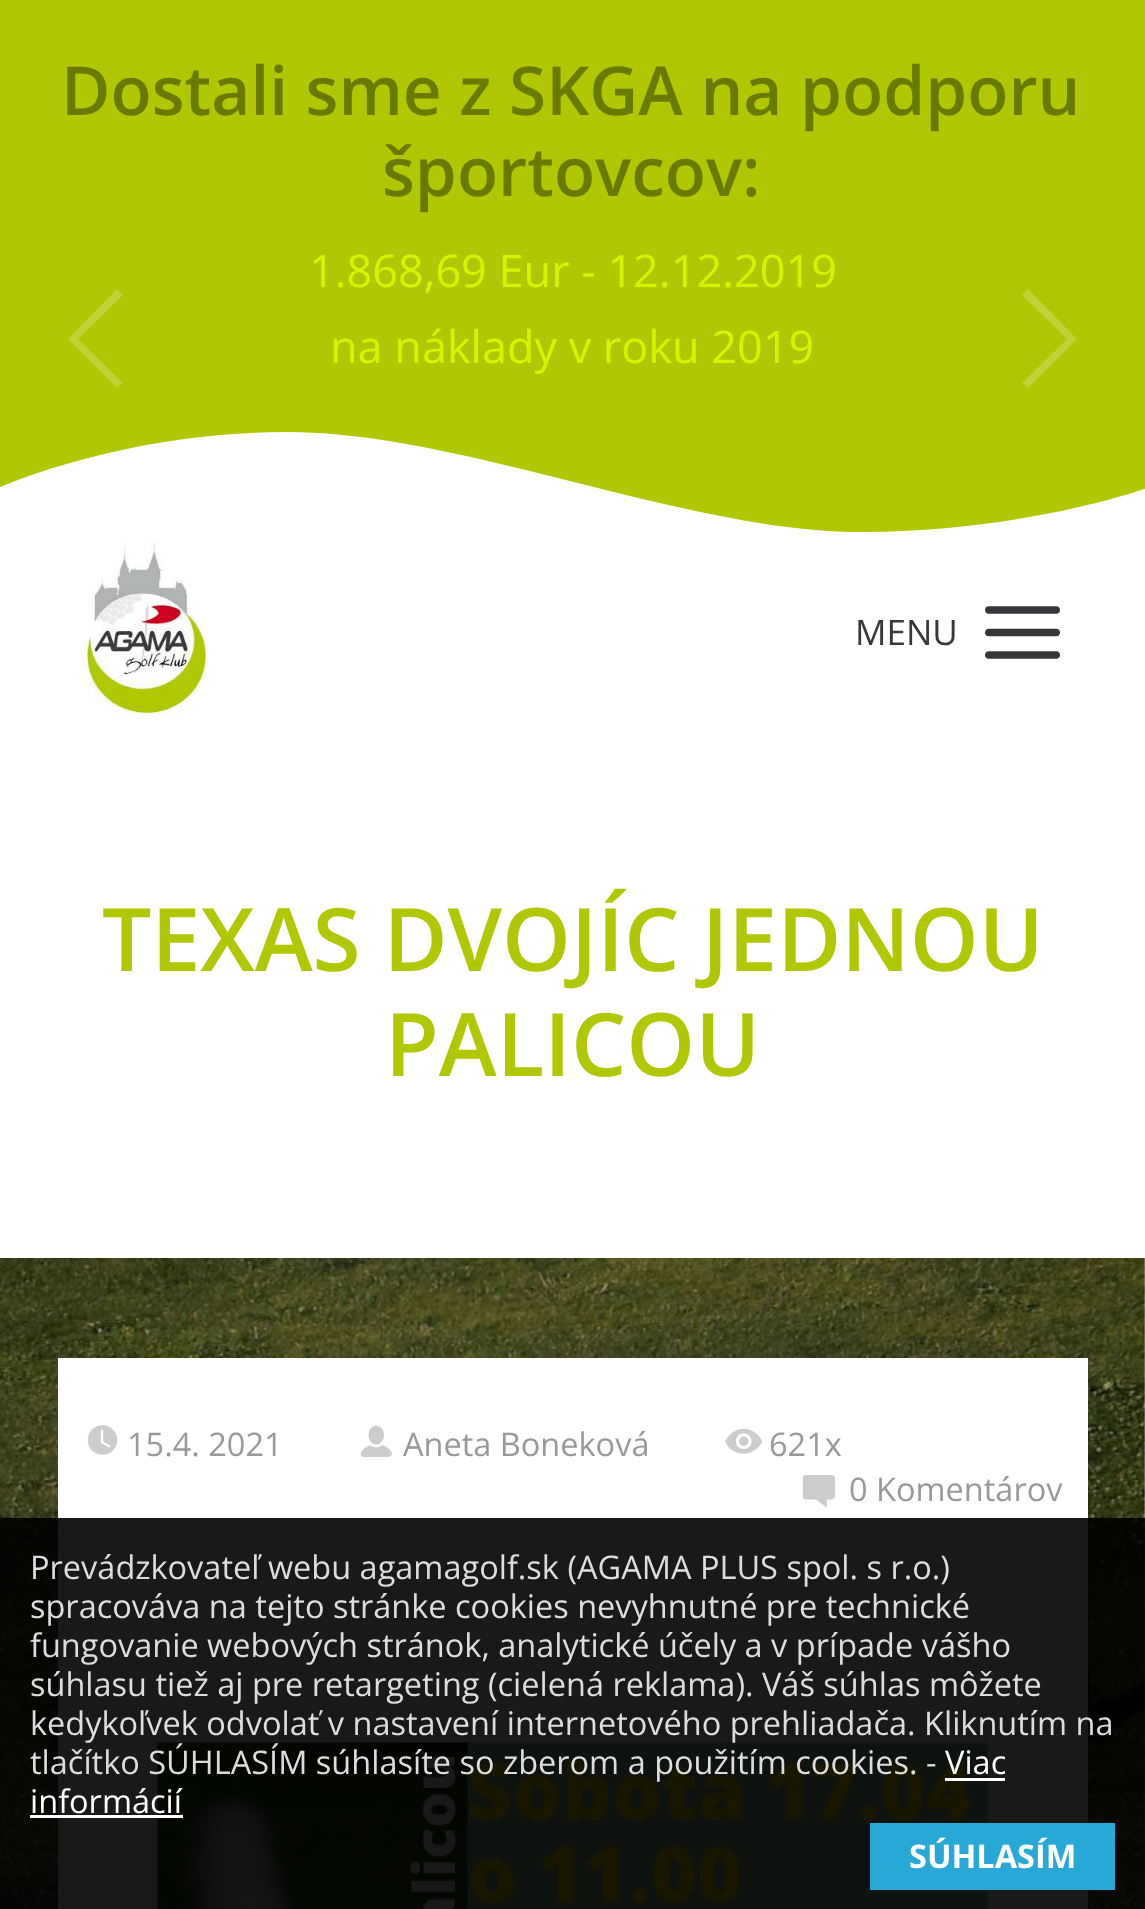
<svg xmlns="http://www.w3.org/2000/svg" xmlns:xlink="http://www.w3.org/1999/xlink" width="1145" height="1909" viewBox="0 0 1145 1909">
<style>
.cls-1{font:600 67.5px Open Sans;fill:#6a7a00}
.cls-2{font:45px Open Sans;fill:#d4f500}
.cls-3{font:35px Open Sans;fill:#37363b}
.cls-4{font:600 87.5px Open Sans;fill:#b0c704}
.cls-5{font:32.5px Open Sans;fill:#999999}
.cls-6{font:32.5px Open Sans;fill:#dddddd}
.cls-7{font:32.5px Open Sans;fill:#ffffff}
.cls-8{font:bold 32.5px Open Sans;fill:#ffffff}
</style>
<rect width="100%" height="100%" fill="#ffffff"/>
<rect fill="#b0c704" x="0" y="0" width="1145" height="532"/>
<path fill="#c0d236" d="M117 388L68 339H78L123 383Z"/>
<path fill="#c0d236" d="M68 339L117 289L123 295L78 339Z"/>
<path fill="#c0d236" d="M1028 289L1077 339H1067L1022 295Z"/>
<path fill="#c0d236" d="M1077 339L1028 388L1022 383L1067 339Z"/>
<path fill="#ffffff" d="M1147 544H-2V488C-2 488 121 432 287 432C462 432 686 532 861 532C1025 532 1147 488 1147 488"/>
<image xlink:href="image0.png" x="82" y="540" width="126" height="175"/>
<image xlink:href="image1.png" x="984" y="606" width="76" height="53"/>
<image xlink:href="image7.png" x="0" y="1258" width="1145" height="651"/>
<rect fill="#ffffff" x="58" y="1358" width="1030" height="551"/>
<rect fill="#eeeeee" x="58" y="1565" width="1030" height="3"/>
<image xlink:href="image2.png" x="87" y="1425" width="31" height="30"/>
<image xlink:href="image3.png" x="360" y="1425" width="32" height="32"/>
<image xlink:href="image4.png" x="725" y="1428" width="37" height="26"/>
<image xlink:href="image5.png" x="802" y="1475" width="33" height="33"/>
<image xlink:href="image6.png" x="157" y="1742" width="831" height="167"/>
<rect fill="#000000" fill-opacity="0.9" x="0" y="1518" width="1145" height="391"/>
<rect fill="#ffffff" x="945" y="1778" width="60" height="3"/>
<rect fill="#ffffff" x="30" y="1815" width="153" height="3"/>
<rect fill="#27a8d7" x="870" y="1823" width="245" height="67"/>
<text class="cls-1" x="61" y="115">Dostali sme z SKGA na podporu</text>
<text class="cls-1" x="382" y="196">športovcov:</text>
<text class="cls-2" x="309" y="287">1.868,69 Eur - 12.12.2019</text>
<text class="cls-2" x="330" y="363">na náklady v roku 2019</text>
<text class="cls-3" x="855" y="645">MENU</text>
<text class="cls-4" x="102" y="971">TEXAS DVOJÍC JEDNOU</text>
<text class="cls-4" x="385" y="1076">PALICOU</text>
<text class="cls-5" x="127" y="1456">15.4. 2021</text>
<text class="cls-5" x="403" y="1456">Aneta Boneková</text>
<text class="cls-5" x="769" y="1456">621x</text>
<text class="cls-5" x="849" y="1501">0 Komentárov</text>
<text class="cls-6"><tspan x="30" y="1579">Prevádzkovateľ webu agamagolf.sk (AGAMA PLUS spol. s r.o.)</tspan><tspan x="30" y="1618">spracováva na tejto stránke cookies nevyhnutné pre technické</tspan><tspan x="30" y="1657">fungovanie webových stránok, analytické účely a v prípade vášho</tspan><tspan x="30" y="1696">súhlasu tiež aj pre retargeting (cielená reklama). Váš súhlas môžete</tspan><tspan x="30" y="1735">kedykoľvek odvolať v nastavení internetového prehliadača. Kliknutím na</tspan><tspan x="30" y="1774">tlačítko SÚHLASÍM súhlasíte so zberom a použitím cookies. -</tspan></text>
<text class="cls-7" x="945" y="1774">Viac</text>
<text class="cls-7" x="30" y="1813">informácií</text>
<text class="cls-8" x="909" y="1868">SÚHLASÍM</text>
</svg>
